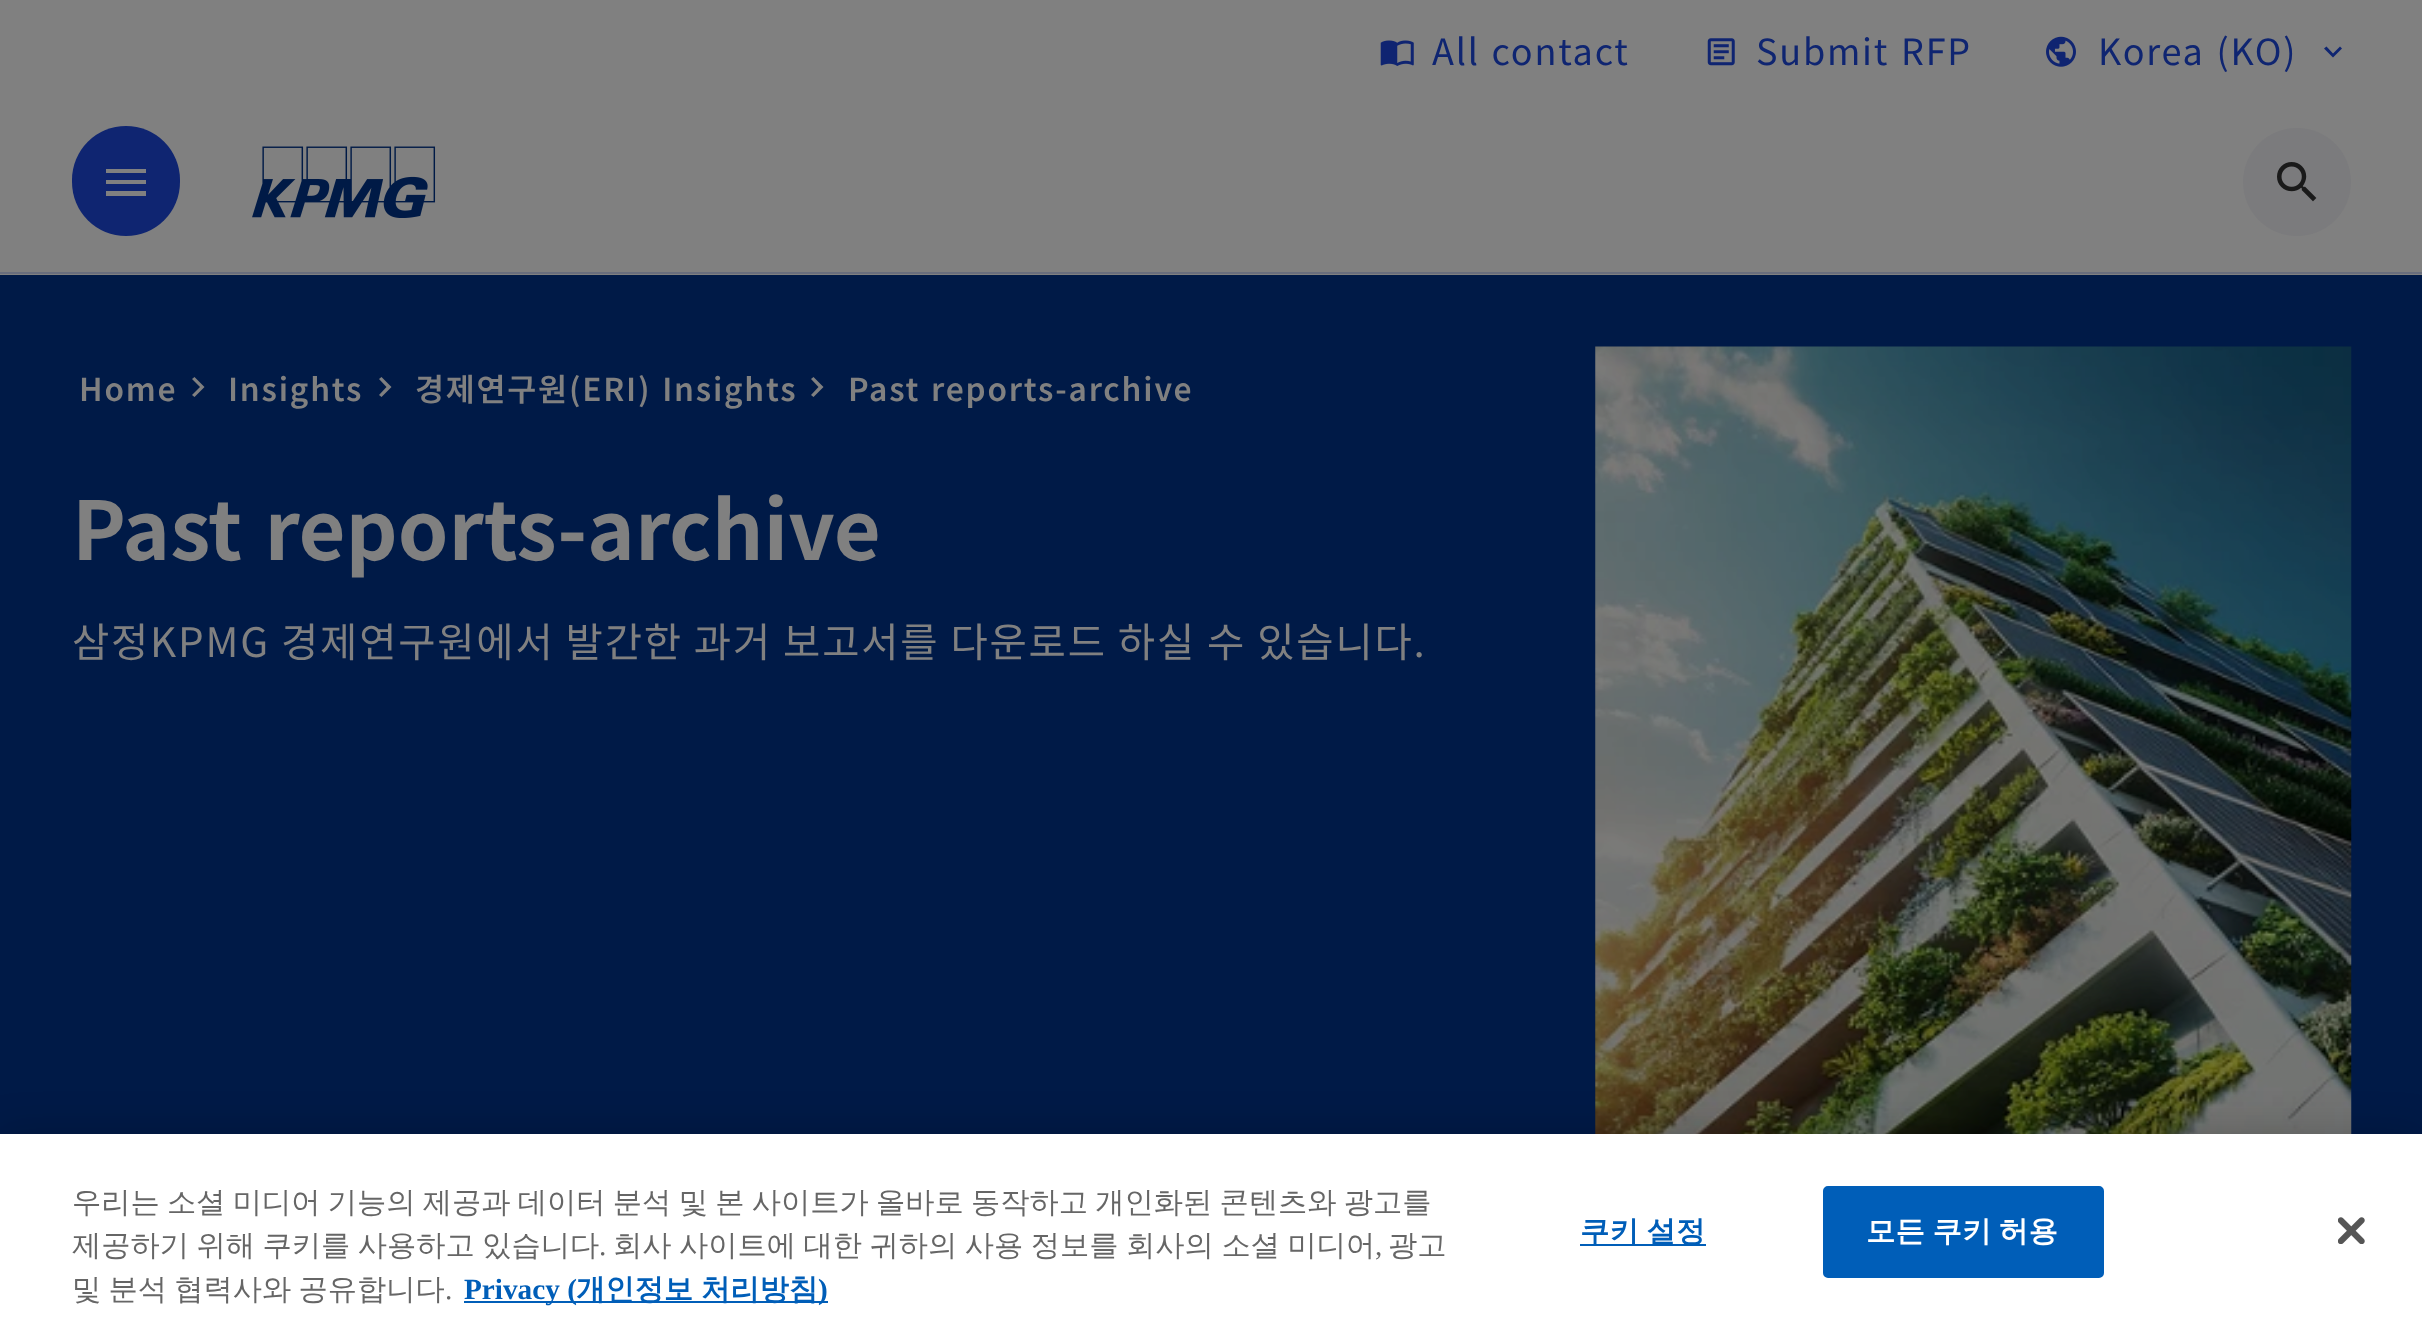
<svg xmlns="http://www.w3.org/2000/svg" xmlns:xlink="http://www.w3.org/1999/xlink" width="2422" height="1334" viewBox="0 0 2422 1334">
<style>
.cls-1{font:36px Noto Sans KR;letter-spacing:1.8px;fill:#0f2571}
.cls-2{font:600 31.5px Noto Sans KR;letter-spacing:1.8px;fill:#808080}
.cls-3{font:bold 81px Noto Sans KR;fill:#808080}
.cls-4{font:40.5px Noto Sans KR;letter-spacing:1.8px;fill:#808080}
.cls-5{font:500 29.25px WenQuanYi Zen Hei;fill:#666666}
.cls-6{font:29.25px Liberation Serif;fill:#666666}
.cls-7{font:bold 29.25px Liberation Serif;fill:#005eb8}
.cls-8{font:bold 29.25px WenQuanYi Zen Hei;fill:#005eb8}
.cls-9{font:bold 29.25px WenQuanYi Zen Hei;letter-spacing:0.25px;fill:#005eb8}
.cls-10{font:bold 29.25px WenQuanYi Zen Hei;letter-spacing:0.25px;fill:#ffffff}
</style>
<rect width="100%" height="100%" fill="#808080"/>
<image xlink:href="image0.png" x="1380" y="40" width="34" height="26"/>
<image xlink:href="image1.png" x="1707" y="38" width="28" height="28"/>
<image xlink:href="image2.png" x="2046" y="36" width="30" height="31"/>
<path fill="#0f2571" d="M2340 46.5L2333 53.5L2326.5 46.5L2324 48.5L2333 57.5L2342 48.5Z"/>
<rect fill="#696e7d" x="0" y="272" width="2422" height="2"/>
<rect fill="#0f2571" x="72" y="126" width="108" height="110" rx="54"/>
<path fill="#808080" d="M106 196H146V191H106ZM106 184H146V180H106ZM106 169V173H146V169Z"/>
<image xlink:href="image3.png" x="252" y="146" width="184" height="72"/>
<circle fill="#7b7b7d" cx="2297" cy="182" r="54"/>
<image xlink:href="image4.png" x="2277" y="162" width="40" height="40"/>
<rect fill="#001a47" x="0" y="275" width="2422" height="859"/>
<path fill="#808080" d="M194.5 377L192 379L200 387L192 395L194.5 397L204.5 387Z"/>
<path fill="#808080" d="M381.5 377L379 379L386.5 387L379 395L381.5 397L391.5 387Z"/>
<path fill="#808080" d="M813.5 377L811 379L818.5 387L811 395L813.5 397L823.5 387Z"/>
<image xlink:href="image5.png" x="1595" y="346" width="757" height="788"/>
<rect fill="#000000" fill-opacity="0.2" filter="blur(20px)" x="0" y="1134" width="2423" height="200"/>
<rect fill="#ffffff" x="0" y="1134" width="2422" height="200"/>
<rect fill="#005eb8" x="464" y="1301" width="364" height="2"/>
<rect fill="#005eb8" x="1580" y="1244" width="126" height="2"/>
<rect fill="#005eb8" stroke="#005eb8" stroke-width="2" x="1824" y="1187" width="279" height="90" rx="4"/>
<image xlink:href="image6.png" x="2338" y="1217" width="27" height="27"/>
<text class="cls-1" x="1432" y="65" word-spacing="2">All contact</text>
<text class="cls-1" x="1756" y="65" word-spacing="2">Submit RFP</text>
<text class="cls-1" x="2098" y="65" word-spacing="2">Korea (KO)</text>
<text class="cls-2" x="79" y="401">Home</text>
<text class="cls-2" x="228" y="401">Insights</text>
<text class="cls-2" x="415" y="401" word-spacing="2">경제연구원(ERI) Insights</text>
<text class="cls-2" x="848" y="401" word-spacing="2">Past reports-archive</text>
<text class="cls-3" x="72" y="560" word-spacing="4">Past reports-archive</text>
<text class="cls-4" x="72" y="657" word-spacing="0.25">삼정KPMG 경제연구원에서 발간한 과거 보고서를 다운로드 하실 수 있습니다.</text>
<text class="cls-5"><tspan x="72" y="1212" word-spacing="-1.5">우리는 소셜 미디어 기능의 제공과 데이터 분석 및 본 사이트가 올바로 동작하고 개인화된 콘텐츠와 광고를</tspan><tspan x="72" y="1255" word-spacing="-1.25">제공하기 위해 쿠키를 사용하고 있습니다</tspan></text>
<text class="cls-6" x="599" y="1255">.</text>
<text class="cls-5" x="613" y="1255" word-spacing="-1.25">회사 사이트에 대한 귀하의 사용 정보를 회사의 소셜 미디어</text>
<text class="cls-6" x="1375" y="1255">,</text>
<text class="cls-5" x="1388" y="1255">광고</text>
<text class="cls-5" x="72" y="1299" word-spacing="-1.5">및 분석 협력사와 공유합니다</text>
<text class="cls-6" x="445" y="1299">.</text>
<text class="cls-7" x="464" y="1299">Privacy (</text>
<text class="cls-8" x="576" y="1299">개인정보</text>
<text class="cls-8" x="701" y="1299">처리방침</text>
<text class="cls-7" x="818" y="1299">)</text>
<text class="cls-9" x="1580" y="1241" word-spacing="-1.5">쿠키 설정</text>
<text class="cls-10" x="1866" y="1241" word-spacing="-1.5">모든 쿠키 허용</text>
</svg>
